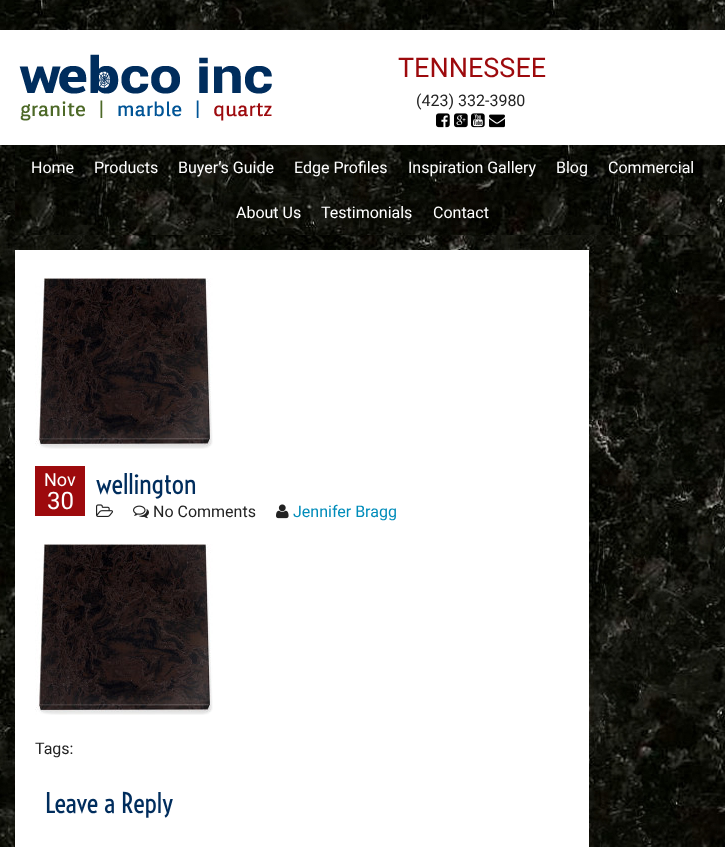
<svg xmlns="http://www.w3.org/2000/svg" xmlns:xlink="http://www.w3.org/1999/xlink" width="725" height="847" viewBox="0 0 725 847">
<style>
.cls-1{font:27px Roboto;fill:#9d0a0d}
.cls-2{font:16px Roboto;fill:#222222}
.cls-3{font:16px Roboto;fill:#ffffff}
.cls-4{font:18px Roboto;fill:#ffffff}
.cls-5{font:24px Roboto;fill:#ffffff}
.cls-6{font:27px Voltaire;fill:#002d5d}
.cls-7{font:16px Roboto;fill:#008cba}
</style>
<rect width="100%" height="100%" fill="#ffffff"/>
<image xlink:href="image0.png" x="0" y="0" width="725" height="847"/>
<rect fill="#ffffff" x="0" y="30" width="725" height="115"/>
<image xlink:href="image1.png" x="19" y="54" width="253" height="67"/>
<image xlink:href="image2.png" x="436" y="113" width="14" height="15"/>
<image xlink:href="image3.png" x="454" y="113" width="14" height="15"/>
<image xlink:href="image4.png" x="471" y="113" width="14" height="15"/>
<image xlink:href="image5.png" x="489" y="114" width="16" height="14"/>
<image xlink:href="image6.png" x="15" y="145" width="695" height="90"/>
<rect fill="#ffffff" x="15" y="250" width="574" height="597"/>
<image xlink:href="image7.png" x="35" y="278" width="178" height="171"/>
<rect fill="#9d0a0d" x="35" y="466" width="50" height="50"/>
<image xlink:href="image8.png" x="96" y="504" width="17" height="13"/>
<image xlink:href="image9.png" x="133" y="505" width="16" height="14"/>
<image xlink:href="image10.png" x="276" y="504" width="13" height="15"/>
<image xlink:href="image7.png" x="35" y="544" width="178" height="171"/>
<text class="cls-1" x="398" y="77">TENNESSEE</text>
<text class="cls-2" x="416" y="106">(423) 332-3980</text>
<text class="cls-3" x="31" y="173">Home</text>
<text class="cls-3" x="94" y="173">Products</text>
<text class="cls-3" x="178" y="173">Buyer’s Guide</text>
<text class="cls-3" x="294" y="173">Edge Profiles</text>
<text class="cls-3" x="408" y="173">Inspiration Gallery</text>
<text class="cls-3" x="556" y="173">Blog</text>
<text class="cls-3" x="608" y="173">Commercial</text>
<text class="cls-3" x="236" y="218">About Us</text>
<text class="cls-3" x="321" y="218">Testimonials</text>
<text class="cls-3" x="433" y="218">Contact</text>
<text class="cls-4" x="44" y="486">Nov</text>
<text class="cls-5" x="47" y="509">30</text>
<text class="cls-6" x="96" y="494">wellington</text>
<text class="cls-2" x="153" y="517">No Comments</text>
<text class="cls-7" x="293" y="517">Jennifer Bragg</text>
<text class="cls-2" x="35" y="754">Tags:</text>
<text class="cls-6" x="45" y="813">Leave a Reply</text>
</svg>
